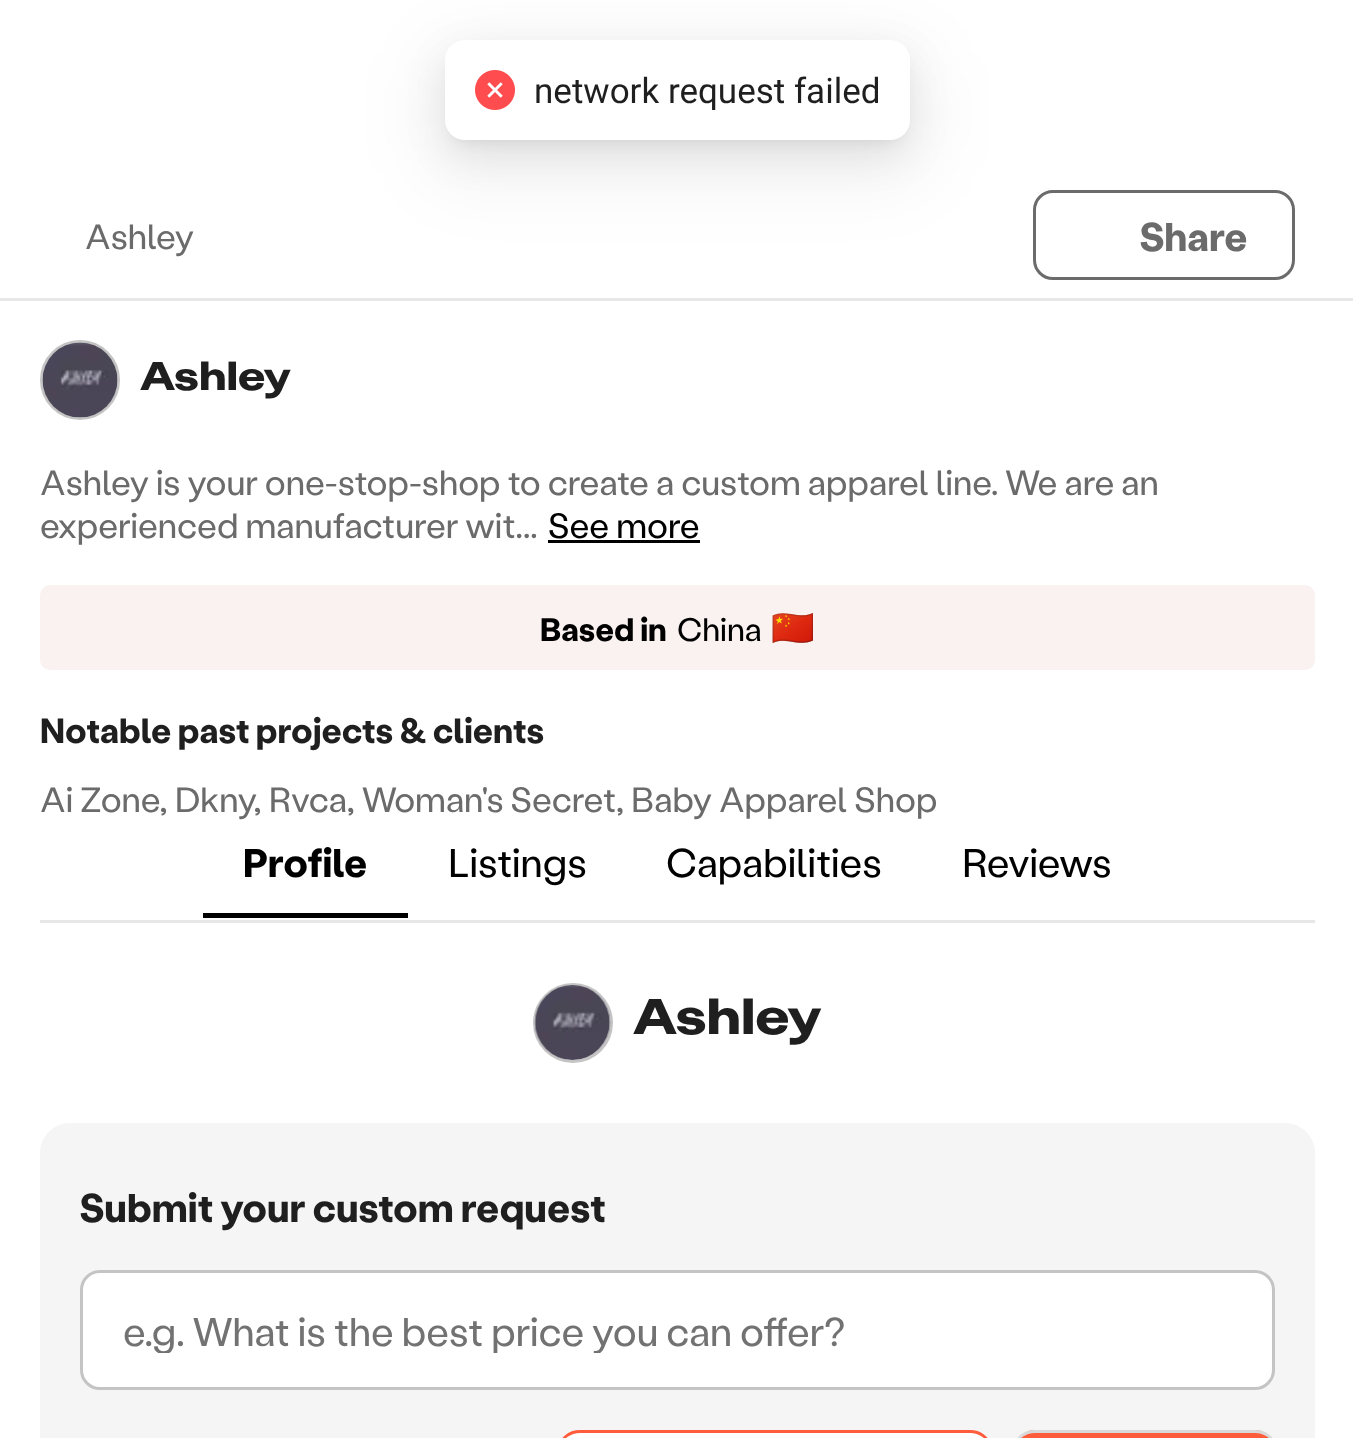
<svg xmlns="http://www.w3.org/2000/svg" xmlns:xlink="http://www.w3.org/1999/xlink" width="1353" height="1438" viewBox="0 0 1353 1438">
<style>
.cls-1{font:35px Roboto;fill:#1f1f1f}
.cls-2{font:35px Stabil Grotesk;fill:#6b6b6b}
.cls-3{font:bold 40px Stabil Grotesk;fill:#6b6b6b}
.cls-4{font:bold 40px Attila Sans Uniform;fill:#1f1f1f}
.cls-5{font:35px Stabil Grotesk;fill:#000000}
.cls-6{font:bold 32.5px Stabil Grotesk;fill:#000000}
.cls-7{font:32.5px Stabil Grotesk;fill:#000000}
.cls-8{font:35px Noto Color Emoji;fill:#1f1f1f}
.cls-9{font:bold 35px Stabil Grotesk;fill:#1f1f1f}
.cls-10{font:bold 40px Stabil Grotesk;fill:#000000}
.cls-11{font:40px Stabil Grotesk;fill:#000000}
.cls-12{font:bold 50px Attila Sans Uniform;fill:#1f1f1f}
.cls-13{font:bold 40px Stabil Grotesk;fill:#1f1f1f}
.cls-14{font:40px Stabil Grotesk;fill:#727272}
</style>
<defs>
<clipPath id="clip1"><rect x="123" y="1305" width="1110" height="48"/></clipPath>
</defs>
<rect width="100%" height="100%" fill="#ffffff"/>
<rect fill="none" stroke="#6b6b6b" stroke-width="3" x="1034.5" y="191.5" width="259" height="87" rx="18.5"/>
<rect fill="#000000" fill-opacity="0.05" filter="blur(35px)" x="425" y="43" width="505" height="140" rx="40"/>
<rect fill="#000000" fill-opacity="0.12" filter="blur(7.5px)" x="455" y="58" width="445" height="80" rx="10"/>
<rect fill="#000000" fill-opacity="0.08" filter="blur(20px)" x="445" y="55" width="465" height="100" rx="20"/>
<rect fill="#ffffff" x="445" y="40" width="465" height="100" rx="20"/>
<image xlink:href="image0.png" x="475" y="70" width="40" height="40"/>
<rect fill="#e7e7e7" x="0" y="298" width="1353" height="3"/>
<circle fill="none" stroke="#c4c4c4" stroke-width="3" cx="80" cy="380" r="38.5"/>
<image xlink:href="image1.png" x="42" y="342" width="76" height="76"/>
<rect fill="#000000" x="548" y="540" width="152" height="3"/>
<rect fill="#f9f2f1" x="40" y="585" width="1275" height="85" rx="10"/>
<rect fill="#e7e7e7" x="40" y="920" width="1275" height="3"/>
<rect fill="#000000" x="203" y="913" width="205" height="5"/>
<circle fill="none" stroke="#c4c4c4" stroke-width="3" cx="573" cy="1023" r="38.5"/>
<image xlink:href="image2.png" x="534" y="985" width="77" height="75"/>
<path fill="#f5f5f5" d="M70 1123H1285C1301.5 1123 1315 1136.5 1315 1153V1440H40V1153C40 1136.5 53.5 1123 70 1123Z"/>
<rect fill="#ffffff" stroke="#c4c4c4" stroke-width="3" x="81.5" y="1271.5" width="1192" height="117" rx="18.5"/>
<path fill="#ffffff" d="M580 1430H970C981 1430 990 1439 990 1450V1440H560V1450C560 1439 569 1430 580 1430Z"/>
<rect fill="none" stroke="#ff5c3c" stroke-width="3" x="561.5" y="1431.5" width="427" height="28" rx="18.5"/>
<path fill="#ff5c3c" d="M1035 1430H1255C1266 1430 1275 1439 1275 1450V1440H1015V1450C1015 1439 1024 1430 1035 1430Z"/>
<rect fill="none" stroke="#d9d9d9" stroke-width="3" x="1016.5" y="1431.5" width="257" height="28" rx="18.5"/>
<text class="cls-1" x="534" y="103">network request failed</text>
<text class="cls-2" x="85" y="249">Ashley</text>
<text class="cls-3" x="1140" y="251">Share</text>
<text class="cls-4" x="140" y="390">Ashley</text>
<text class="cls-2"><tspan x="40" y="495">Ashley is your one-stop-shop to create a custom apparel line. We are an</tspan><tspan x="40" y="538">experienced manufacturer wit...</tspan></text>
<text class="cls-5" x="548" y="538">See more</text>
<text class="cls-6" x="540" y="641">Based in</text>
<text class="cls-7" x="677" y="641">China</text>
<text class="cls-8" x="771" y="640">🇨🇳</text>
<text class="cls-9" x="40" y="743">Notable past projects &amp; clients</text>
<text class="cls-2" x="40" y="812">Ai Zone, Dkny, Rvca, Woman's Secret, Baby Apparel Shop</text>
<text class="cls-10" x="243" y="877">Profile</text>
<text class="cls-11" x="448" y="877">Listings</text>
<text class="cls-11" x="666" y="877">Capabilities</text>
<text class="cls-11" x="962" y="877">Reviews</text>
<text class="cls-12" x="633" y="1034">Ashley</text>
<text class="cls-13" x="80" y="1222">Submit your custom request</text>
<g clip-path="url(#clip1)">
<text class="cls-14" x="123" y="1346">e.g. What is the best price you can offer?</text>
</g>
</svg>
